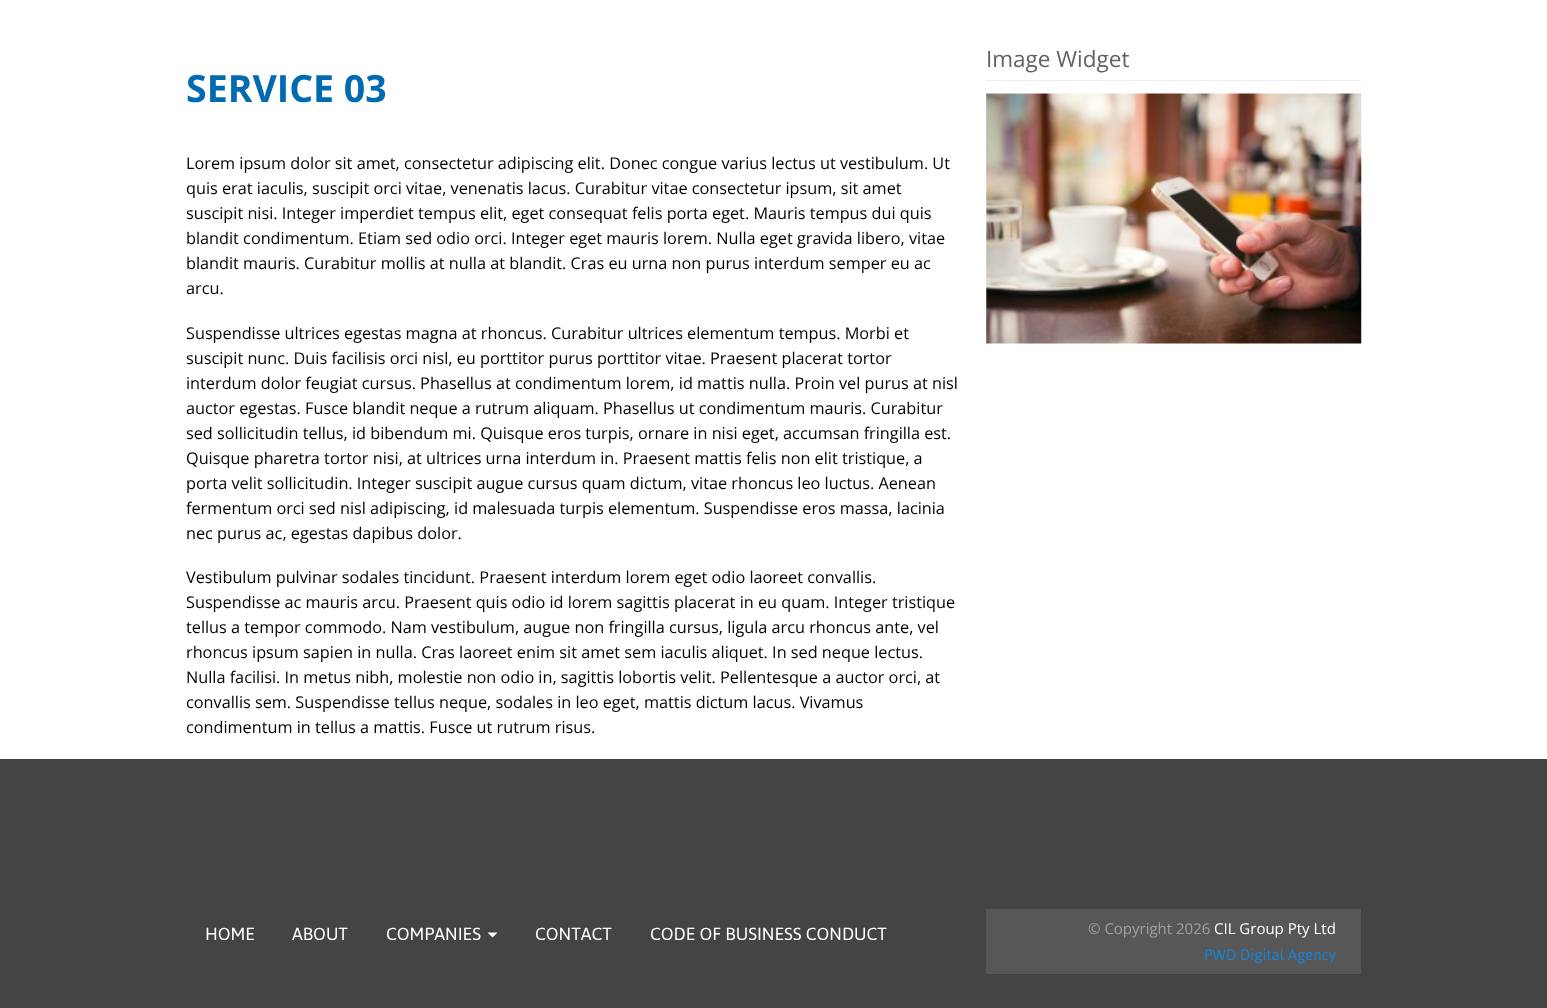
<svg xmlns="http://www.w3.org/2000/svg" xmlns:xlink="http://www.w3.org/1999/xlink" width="1547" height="1008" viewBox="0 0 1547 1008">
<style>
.cls-1{font:22.5px Open Sans;fill:#636363}
.cls-2{font:bold 37.5px Open Sans;fill:#006bb1}
.cls-3{font:16.25px Open Sans;fill:#000000}
.cls-4{font:17.5px Asap;fill:#ffffff}
.cls-5{font:15px Open Sans;fill:#a0a0a0}
.cls-6{font:15px Open Sans;fill:#ffffff}
.cls-7{font:15px Asap;fill:#1982d1}
</style>
<rect width="100%" height="100%" fill="#ffffff"/>
<rect fill="#ededed" x="986" y="80" width="375" height="1"/>
<image xlink:href="image0.png" x="986" y="93" width="376" height="251"/>
<rect fill="#444444" x="0" y="759" width="1547" height="249"/>
<path fill="#ffffff" d="M487.5 932.5H497.5L492.5 937.5Z"/>
<rect fill="#575757" x="986" y="909" width="375" height="65"/>
<text class="cls-1" x="986" y="67">Image Widget</text>
<text class="cls-2" x="186" y="102">SERVICE 03</text>
<text class="cls-3"><tspan x="186" y="169">Lorem ipsum dolor sit amet, consectetur adipiscing elit. Donec congue varius lectus ut vestibulum. Ut</tspan><tspan x="186" y="194">quis erat iaculis, suscipit orci vitae, venenatis lacus. Curabitur vitae consectetur ipsum, sit amet</tspan><tspan x="186" y="219">suscipit nisi. Integer imperdiet tempus elit, eget consequat felis porta eget. Mauris tempus dui quis</tspan><tspan x="186" y="244">blandit condimentum. Etiam sed odio orci. Integer eget mauris lorem. Nulla eget gravida libero, vitae</tspan><tspan x="186" y="269">blandit mauris. Curabitur mollis at nulla at blandit. Cras eu urna non purus interdum semper eu ac</tspan><tspan x="186" y="294">arcu.</tspan></text>
<text class="cls-3"><tspan x="186" y="339">Suspendisse ultrices egestas magna at rhoncus. Curabitur ultrices elementum tempus. Morbi et</tspan><tspan x="186" y="364">suscipit nunc. Duis facilisis orci nisl, eu porttitor purus porttitor vitae. Praesent placerat tortor</tspan><tspan x="186" y="389">interdum dolor feugiat cursus. Phasellus at condimentum lorem, id mattis nulla. Proin vel purus at nisl</tspan><tspan x="186" y="414">auctor egestas. Fusce blandit neque a rutrum aliquam. Phasellus ut condimentum mauris. Curabitur</tspan><tspan x="186" y="439">sed sollicitudin tellus, id bibendum mi. Quisque eros turpis, ornare in nisi eget, accumsan fringilla est.</tspan><tspan x="186" y="464">Quisque pharetra tortor nisi, at ultrices urna interdum in. Praesent mattis felis non elit tristique, a</tspan><tspan x="186" y="489">porta velit sollicitudin. Integer suscipit augue cursus quam dictum, vitae rhoncus leo luctus. Aenean</tspan><tspan x="186" y="514">fermentum orci sed nisl adipiscing, id malesuada turpis elementum. Suspendisse eros massa, lacinia</tspan><tspan x="186" y="539">nec purus ac, egestas dapibus dolor.</tspan></text>
<text class="cls-3"><tspan x="186" y="583">Vestibulum pulvinar sodales tincidunt. Praesent interdum lorem eget odio laoreet convallis.</tspan><tspan x="186" y="608">Suspendisse ac mauris arcu. Praesent quis odio id lorem sagittis placerat in eu quam. Integer tristique</tspan><tspan x="186" y="633">tellus a tempor commodo. Nam vestibulum, augue non fringilla cursus, ligula arcu rhoncus ante, vel</tspan><tspan x="186" y="658">rhoncus ipsum sapien in nulla. Cras laoreet enim sit amet sem iaculis aliquet. In sed neque lectus.</tspan><tspan x="186" y="683">Nulla facilisi. In metus nibh, molestie non odio in, sagittis lobortis velit. Pellentesque a auctor orci, at</tspan><tspan x="186" y="708">convallis sem. Suspendisse tellus neque, sodales in leo eget, mattis dictum lacus. Vivamus</tspan><tspan x="186" y="733">condimentum in tellus a mattis. Fusce ut rutrum risus.</tspan></text>
<text class="cls-4" x="205" y="940">HOME</text>
<text class="cls-4" x="292" y="940">ABOUT</text>
<text class="cls-4" x="386" y="940">COMPANIES</text>
<text class="cls-4" x="535" y="940">CONTACT</text>
<text class="cls-4" x="650" y="940">CODE OF BUSINESS CONDUCT</text>
<text class="cls-5" x="1088" y="934">© Copyright 2026</text>
<text class="cls-6" x="1214" y="934">CIL Group Pty Ltd</text>
<text class="cls-7" x="1204" y="960">PWD Digital Agency</text>
</svg>
